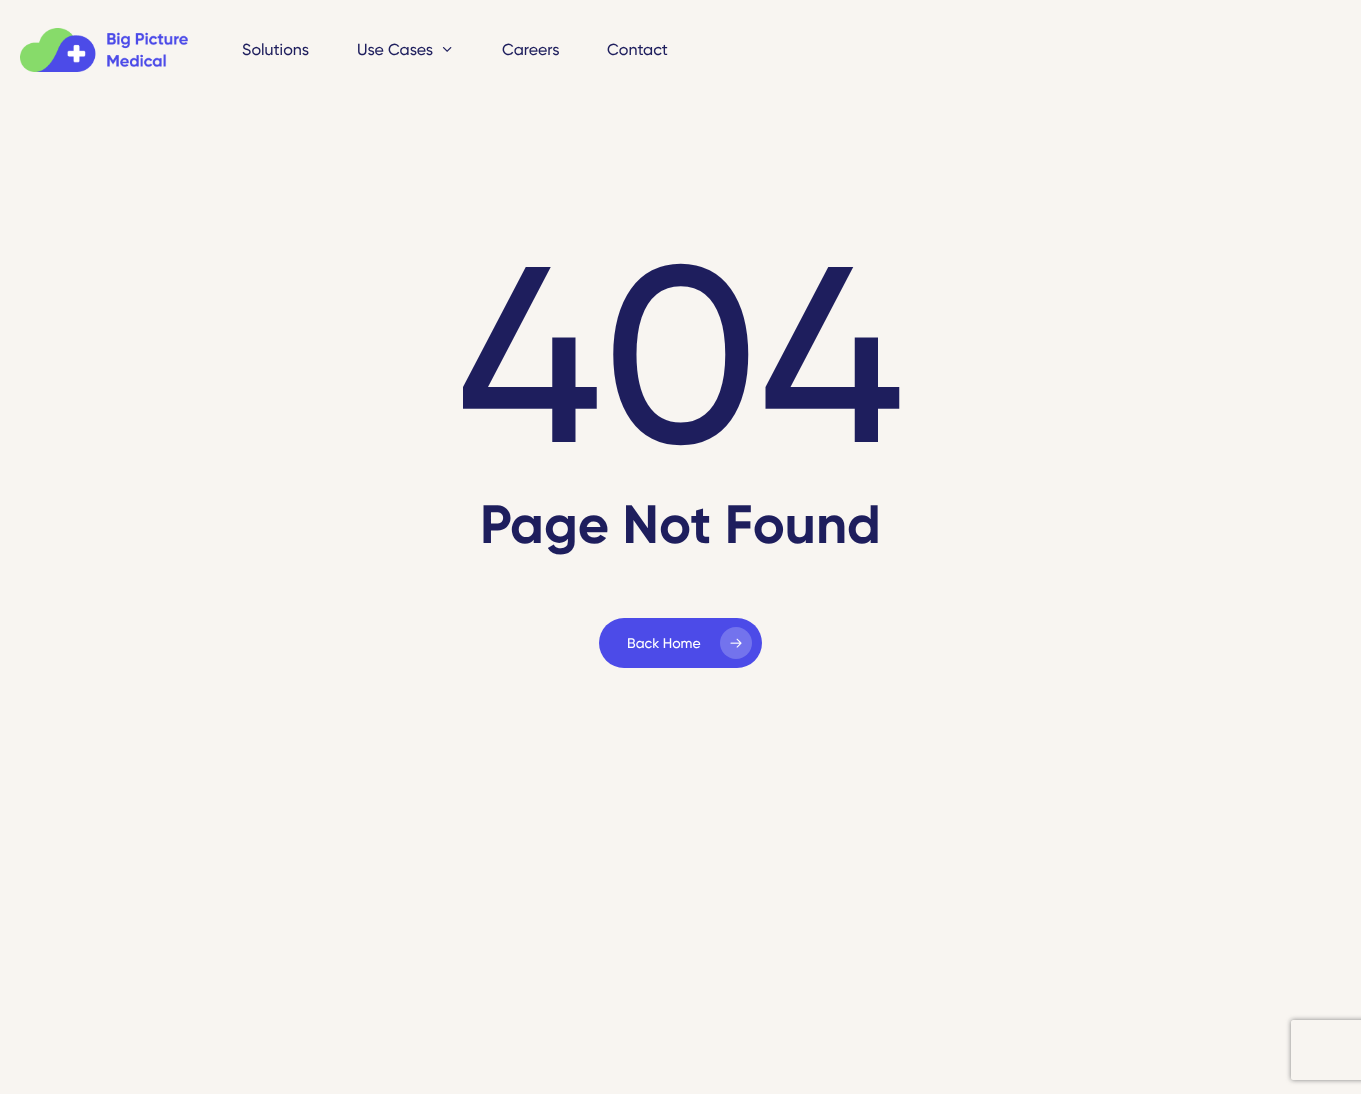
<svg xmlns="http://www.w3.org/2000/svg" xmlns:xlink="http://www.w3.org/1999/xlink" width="1361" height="1094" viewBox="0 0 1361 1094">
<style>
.cls-1{font:500 16px Gilroy;fill:#1e1e5d}
.cls-2{font:500 250px Gilroy;fill:#1e1e5d}
.cls-3{font:bold 54px Gilroy;fill:#1e1e5d}
.cls-4{font:500 14px Gilroy;fill:#ffffff}
</style>
<defs>
<clipPath id="clip1"><path d="M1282 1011H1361V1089H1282ZM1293 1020H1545C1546 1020 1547 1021 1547 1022V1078C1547 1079 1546 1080 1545 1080H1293C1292 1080 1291 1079 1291 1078V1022C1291 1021 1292 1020 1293 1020Z" clip-rule="evenodd"/></clipPath>
</defs>
<rect width="100%" height="100%" fill="#f8f5f1"/>
<image xlink:href="image0.png" x="20" y="28" width="168" height="44"/>
<image xlink:href="image1.png" x="442" y="47" width="10" height="5"/>
<rect fill="#4c4be8" x="599" y="618" width="163" height="50" rx="25"/>
<circle fill="#7373ed" cx="736" cy="643" r="16"/>
<image xlink:href="image2.png" x="730" y="638" width="12" height="10"/>
<g clip-path="url(#clip1)">
<rect fill="#808080" filter="blur(2.5px)" x="1291" y="1020" width="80" height="60" rx="2"/>
</g>
<text class="cls-1" x="242" y="55">Solutions</text>
<text class="cls-1" x="357" y="55">Use Cases</text>
<text class="cls-1" x="502" y="55">Careers</text>
<text class="cls-1" x="607" y="55">Contact</text>
<text class="cls-2" x="457" y="442">404</text>
<text class="cls-3" x="480" y="543">Page Not Found</text>
<text class="cls-4" x="627" y="648">Back Home</text>
</svg>
